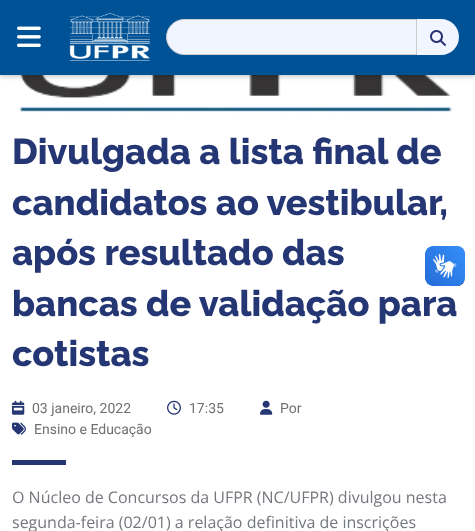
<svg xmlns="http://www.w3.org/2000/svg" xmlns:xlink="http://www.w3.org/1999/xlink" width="475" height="531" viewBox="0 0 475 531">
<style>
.cls-1{font:800 36px Raleway;fill:#243673}
.cls-2{font:14px Roboto;fill:#707070}
.cls-3{font:16px Open Sans;fill:#74777d}
</style>
<rect width="100%" height="100%" fill="#ffffff"/>
<image xlink:href="image3.png" x="19" y="75" width="434" height="38"/>
<rect fill="#000000" fill-opacity="0.2" filter="blur(2px)" x="0" y="2" width="475" height="75"/>
<rect fill="#005296" x="0" y="0" width="475" height="75"/>
<image xlink:href="image0.png" x="17" y="26" width="24" height="21"/>
<image xlink:href="image1.png" x="69" y="13" width="81" height="48"/>
<path fill="#f1f5ff" stroke="#cccccc" d="M184 19.5H416.5V54.5H184C174.5 54.5 166.5 46.5 166.5 37C166.5 27.5 174.5 19.5 184 19.5Z"/>
<path fill="#f1f5ff" d="M417 19H441C451 19 459 27 459 37C459 47 451 55 441 55H417Z"/>
<image xlink:href="image2.png" x="430" y="30" width="16" height="16"/>
<image xlink:href="image4.png" x="12" y="400" width="13" height="15"/>
<image xlink:href="image5.png" x="167" y="400" width="14" height="15"/>
<image xlink:href="image6.png" x="260" y="400" width="13" height="15"/>
<image xlink:href="image7.png" x="12" y="422" width="14" height="13"/>
<rect fill="#243673" x="12" y="460" width="54" height="5"/>
<image xlink:href="image8.png" x="425" y="246" width="40" height="40"/>
<image xlink:href="image9.png" x="425" y="246" width="40" height="40"/>
<text class="cls-1"><tspan x="12" y="164">Divulgada a lista final de</tspan><tspan x="12" y="215">candidatos ao vestibular,</tspan><tspan x="12" y="265">após resultado das</tspan><tspan x="12" y="316">bancas de validação para</tspan><tspan x="12" y="366">cotistas</tspan></text>
<text class="cls-2" x="32" y="413">03 janeiro, 2022</text>
<text class="cls-2" x="189" y="413">17:35</text>
<text class="cls-2" x="280" y="413">Por</text>
<text class="cls-2" x="34" y="434">Ensino e Educação</text>
<text class="cls-3"><tspan x="12" y="503">O Núcleo de Concursos da UFPR (NC/UFPR) divulgou nesta</tspan><tspan x="12" y="528">segunda-feira (02/01) a relação definitiva de inscrições</tspan></text>
</svg>
